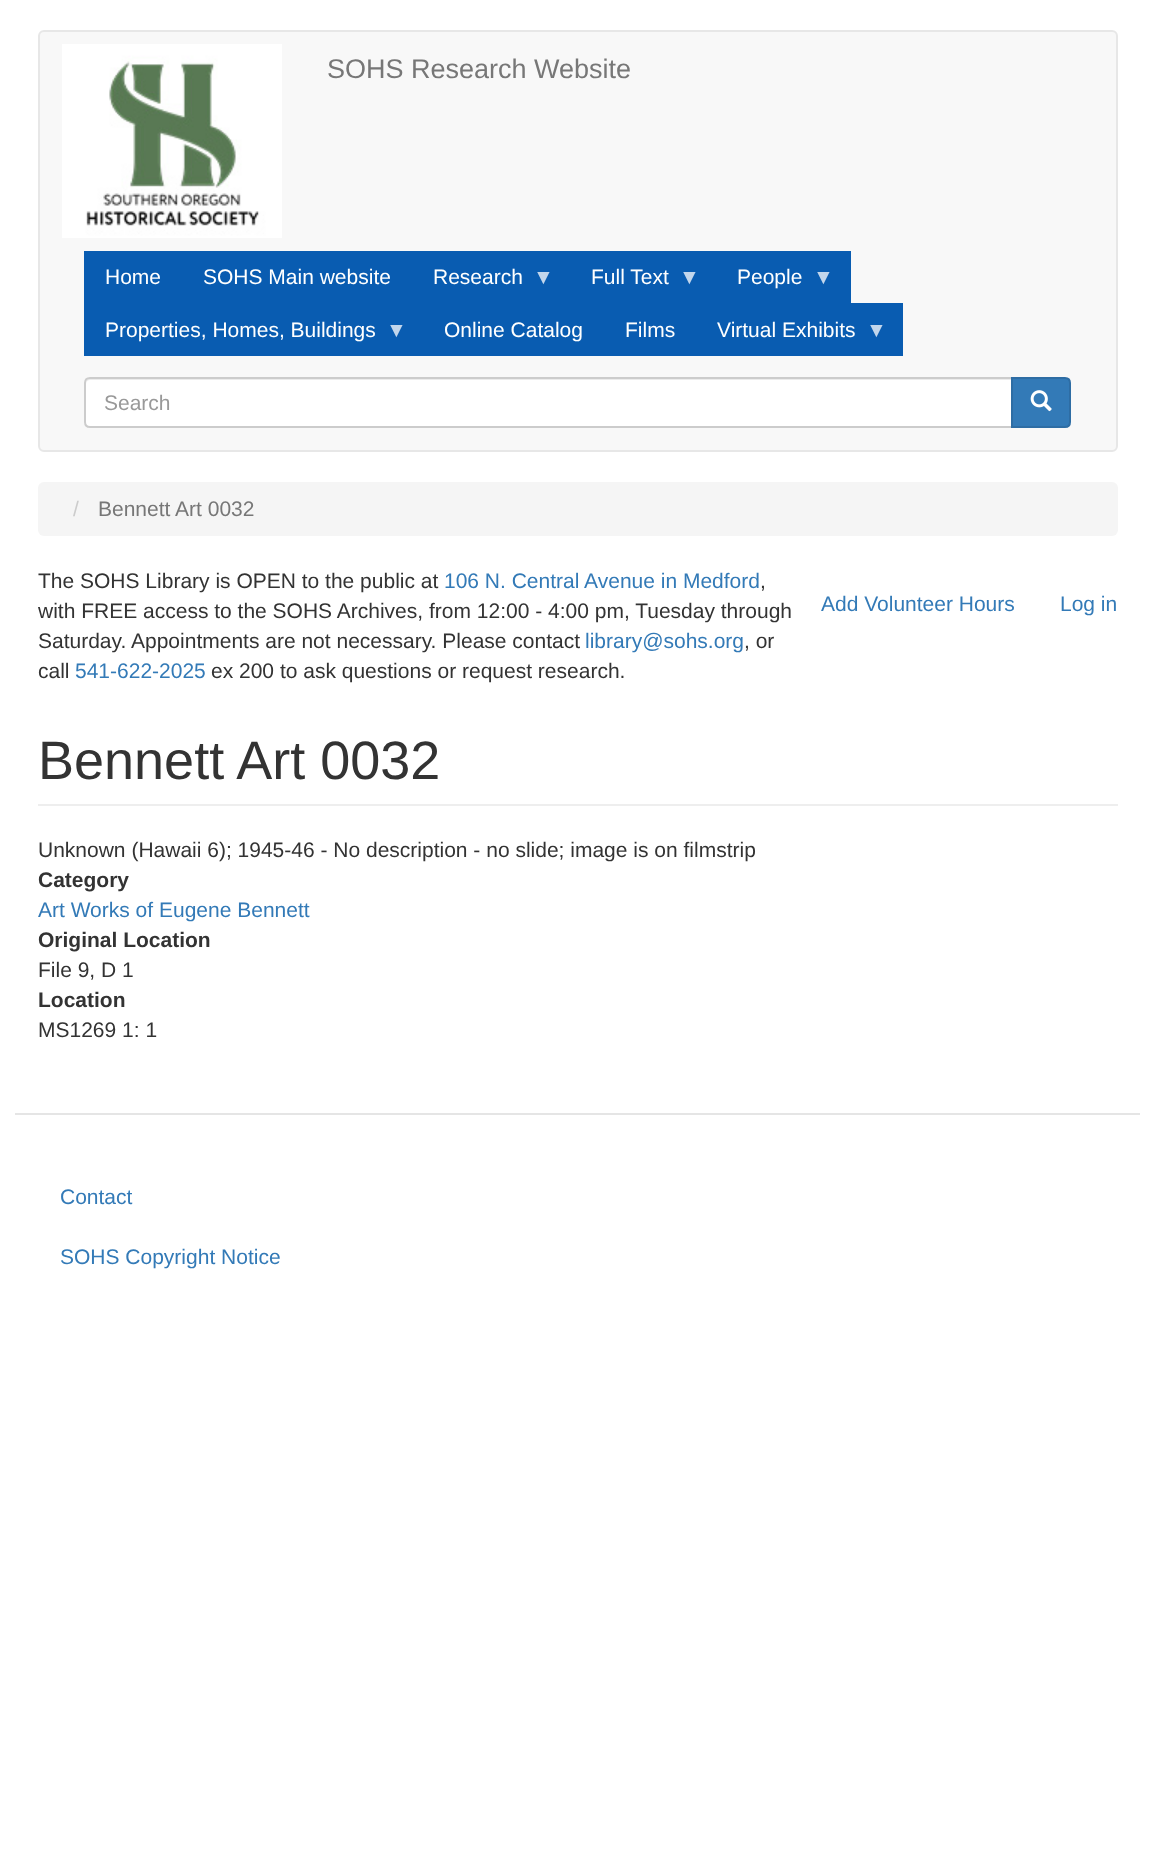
<svg xmlns="http://www.w3.org/2000/svg" xmlns:xlink="http://www.w3.org/1999/xlink" width="1155" height="1866" viewBox="0 0 1155 1866">
<style>
.cls-1{font:27px Liberation Sans;fill:#777777}
.cls-2{font:21px Liberation Sans;fill:#ffffff}
.cls-3{font:21px Liberation Sans;fill:#c2d6ec}
.cls-4{font:21px Liberation Sans;fill:#999999}
.cls-5{font:21px Liberation Sans;fill:#cccccc}
.cls-6{font:21px Liberation Sans;fill:#777777}
.cls-7{font:21px Liberation Sans;fill:#333333}
.cls-8{font:21px Liberation Sans;fill:#337ab7}
.cls-9{font:54px Liberation Sans;fill:#333333}
.cls-10{font:bold 21px Liberation Sans;fill:#333333}
</style>
<rect width="100%" height="100%" fill="#ffffff"/>
<rect fill="#f8f8f8" stroke="#e7e7e7" stroke-width="2" x="39" y="31" width="1078" height="420" rx="5"/>
<image xlink:href="image0.png" x="62" y="44" width="220" height="194"/>
<rect fill="#095cb1" x="84" y="251" width="767" height="52"/>
<rect fill="#095cb1" x="84" y="303" width="819" height="53"/>
<path fill="#ffffff" d="M90 377H1013V428H90C86.5 428 84 425.5 84 422V383C84 379.5 86.5 377 90 377Z"/>
<path fill="#ececec" d="M90 380H1011V378H91C88 378 86 381 86 384C86 382 88 380 90 380Z"/>
<path fill="none" stroke="#cccccc" stroke-width="2" d="M90 378H1012V427H90C87 427 85 425 85 422V383C85 380 87 378 90 378Z"/>
<path fill="#337ab7" stroke="#2e6da4" stroke-width="2" d="M1012 378H1065C1068 378 1070 380 1070 383V422C1070 425 1068 427 1065 427H1012Z"/>
<image xlink:href="image1.png" x="1030" y="390" width="22" height="22"/>
<rect fill="#f5f5f5" x="38" y="482" width="1080" height="54" rx="6"/>
<rect fill="#eeeeee" x="38" y="804" width="1080" height="2"/>
<rect fill="#e5e5e5" x="15" y="1113" width="1125" height="2"/>
<text class="cls-1" x="327" y="78">SOHS Research Website</text>
<text class="cls-2" x="105" y="284">Home</text>
<text class="cls-2" x="203" y="284">SOHS Main website</text>
<text class="cls-2" x="433" y="284">Research</text>
<text class="cls-3" x="533" y="284">▼</text>
<text class="cls-2" x="591" y="284">Full Text</text>
<text class="cls-3" x="679" y="284">▼</text>
<text class="cls-2" x="737" y="284">People</text>
<text class="cls-3" x="813" y="284">▼</text>
<text class="cls-2" x="105" y="337">Properties, Homes, Buildings</text>
<text class="cls-3" x="386" y="337">▼</text>
<text class="cls-2" x="444" y="337">Online Catalog</text>
<text class="cls-2" x="625" y="337">Films</text>
<text class="cls-2" x="717" y="337">Virtual Exhibits</text>
<text class="cls-3" x="866" y="337">▼</text>
<text class="cls-4" x="104" y="410">Search</text>
<text class="cls-5" x="73" y="516">/</text>
<text class="cls-6" x="98" y="516">Bennett Art 0032</text>
<text class="cls-7" x="38" y="588">The SOHS Library is OPEN to the public at</text>
<text class="cls-8" x="444" y="588">106 N. Central Avenue in Medford</text>
<text class="cls-7" x="760" y="588">,</text>
<text class="cls-7"><tspan x="38" y="618">with FREE access to the SOHS Archives, from 12:00 - 4:00 pm, Tuesday through</tspan><tspan x="38" y="648">Saturday. Appointments are not necessary. Please contact</tspan></text>
<text class="cls-8" x="585" y="648">library@sohs.org</text>
<text class="cls-7" x="744" y="648">, or</text>
<text class="cls-7" x="38" y="678">call</text>
<text class="cls-8" x="75" y="678">541-622-2025</text>
<text class="cls-7" x="211" y="678">ex 200 to ask questions or request research.</text>
<text class="cls-8" x="821" y="611">Add Volunteer Hours</text>
<text class="cls-8" x="1060" y="611">Log in</text>
<text class="cls-9" x="38" y="779">Bennett Art 0032</text>
<text class="cls-7" x="38" y="857">Unknown (Hawaii 6); 1945-46 - No description - no slide; image is on filmstrip</text>
<text class="cls-10" x="38" y="887">Category</text>
<text class="cls-8" x="38" y="917">Art Works of Eugene Bennett</text>
<text class="cls-10" x="38" y="947">Original Location</text>
<text class="cls-7" x="38" y="977">File 9, D 1</text>
<text class="cls-10" x="38" y="1007">Location</text>
<text class="cls-7" x="38" y="1037">MS1269 1: 1</text>
<text class="cls-8" x="60" y="1204">Contact</text>
<text class="cls-8" x="60" y="1264">SOHS Copyright Notice</text>
</svg>
